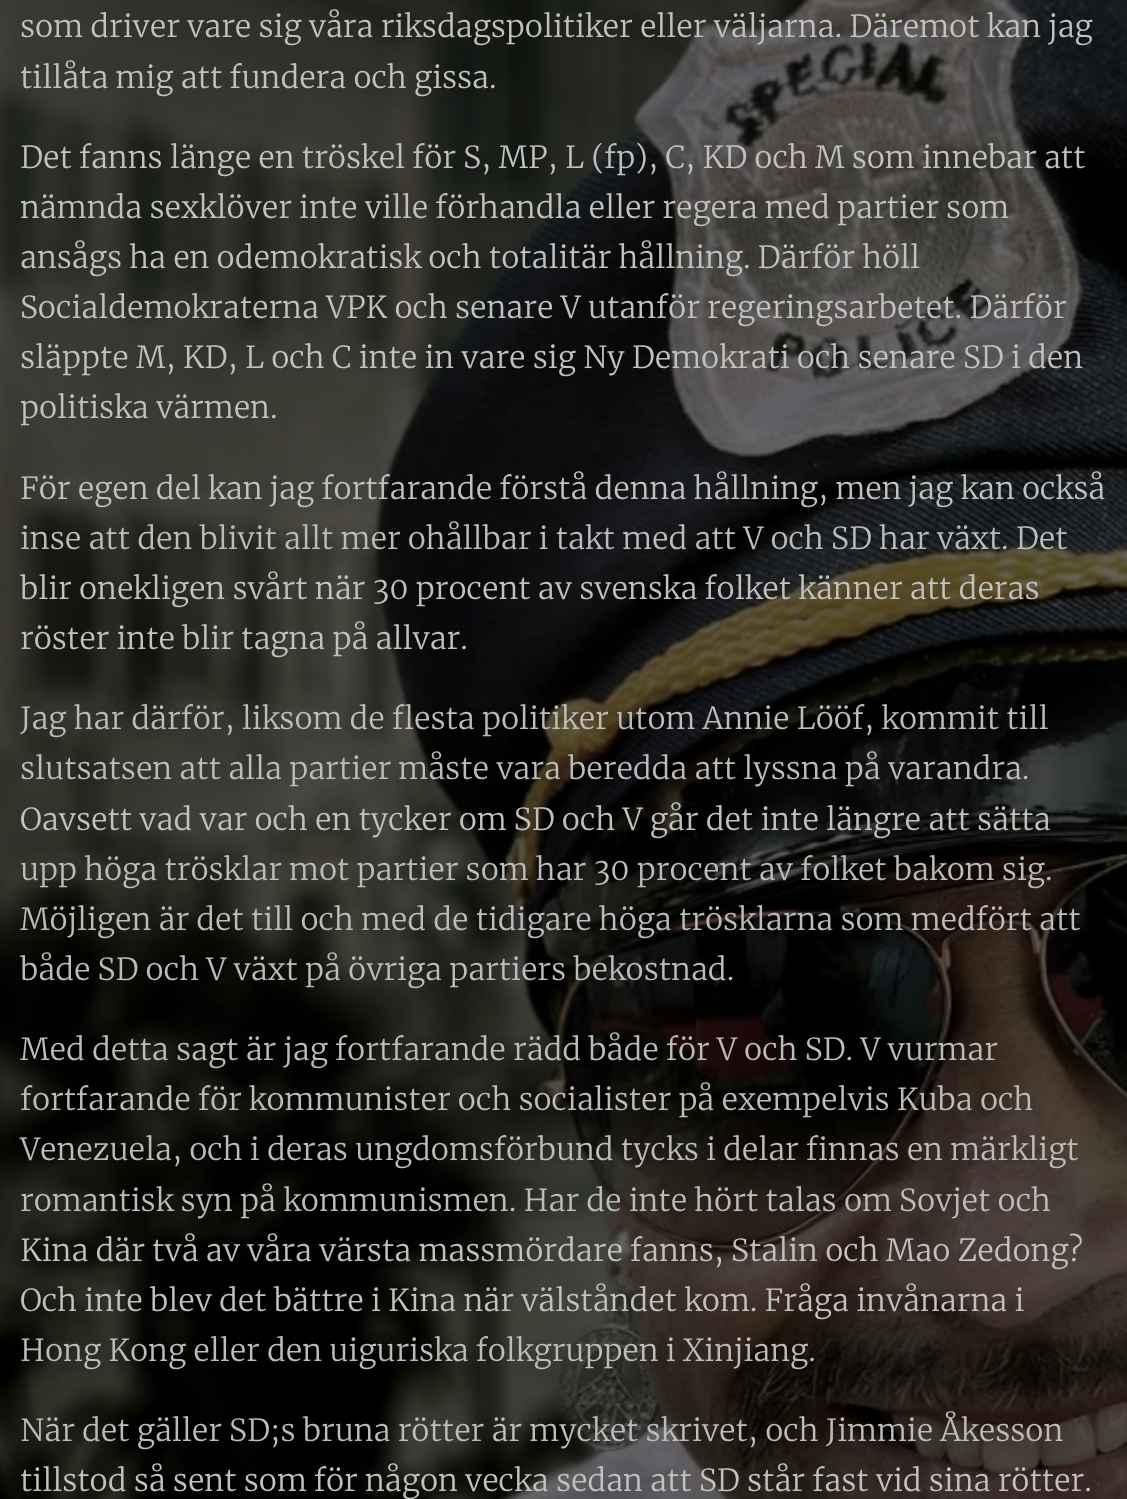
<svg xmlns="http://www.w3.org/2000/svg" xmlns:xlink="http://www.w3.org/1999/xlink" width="1127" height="1499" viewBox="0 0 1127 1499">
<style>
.cls-1{font:300 30.4px Merriweather;fill:#c1c1c0}
.cls-2{font:300 30.4px Merriweather;fill:#bbbcbb}
</style>
<rect width="100%" height="100%" fill="#ffffff"/>
<image xlink:href="image0.png" x="0" y="0" width="1127" height="1499"/>
<text class="cls-1"><tspan x="20" y="37">som driver vare sig våra riksdagspolitiker eller väljarna. Däremot kan jag</tspan><tspan x="20" y="88">tillåta mig att fundera och gissa.</tspan></text>
<text class="cls-1"><tspan x="20" y="168">Det fanns länge en tröskel för S, MP, L (fp), C, KD och M som innebar att</tspan><tspan x="20" y="218">nämnda sexklöver inte ville förhandla eller regera med partier som</tspan><tspan x="20" y="268">ansågs ha en odemokratisk och totalitär hållning. Därför höll</tspan><tspan x="20" y="318">Socialdemokraterna VPK och senare V utanför regeringsarbetet. Därför</tspan><tspan x="20" y="368">släppte M, KD, L och C inte in vare sig Ny Demokrati och senare SD i den</tspan><tspan x="20" y="418">politiska värmen.</tspan></text>
<text class="cls-1" x="20" y="499">För egen del kan jag fortfarande förstå denna hållning, men jag kan också</text>
<text class="cls-2" x="20" y="549">inse att den blivit allt mer ohållbar i takt med att V och SD har växt. Det</text>
<text class="cls-1"><tspan x="20" y="599">blir onekligen svårt när 30 procent av svenska folket känner att deras</tspan><tspan x="20" y="649">röster inte blir tagna på allvar.</tspan></text>
<text class="cls-2"><tspan x="20" y="729">Jag har därför, liksom de flesta politiker utom Annie Lööf, kommit till</tspan><tspan x="20" y="779">slutsatsen att alla partier måste vara beredda att lyssna på varandra.</tspan></text>
<text class="cls-1" x="20" y="830">Oavsett vad var och en tycker om SD och V går det inte längre att sätta</text>
<text class="cls-2"><tspan x="20" y="880">upp höga trösklar mot partier som har 30 procent av folket bakom sig.</tspan><tspan x="20" y="930">Möjligen är det till och med de tidigare höga trösklarna som medfört att</tspan><tspan x="20" y="980">både SD och V växt på övriga partiers bekostnad.</tspan></text>
<text class="cls-2"><tspan x="20" y="1060">Med detta sagt är jag fortfarande rädd både för V och SD. V vurmar</tspan><tspan x="20" y="1110">fortfarande för kommunister och socialister på exempelvis Kuba och</tspan><tspan x="20" y="1160">Venezuela, och i deras ungdomsförbund tycks i delar finnas en märkligt</tspan><tspan x="20" y="1211">romantisk syn på kommunismen. Har de inte hört talas om Sovjet och</tspan></text>
<text class="cls-1"><tspan x="20" y="1261">Kina där två av våra värsta massmördare fanns, Stalin och Mao Zedong?</tspan><tspan x="20" y="1311">Och inte blev det bättre i Kina när välståndet kom. Fråga invånarna i</tspan></text>
<text class="cls-2" x="20" y="1361">Hong Kong eller den uiguriska folkgruppen i Xinjiang.</text>
<text class="cls-2" x="20" y="1441">När det gäller SD;s bruna rötter är mycket skrivet, och Jimmie Åkesson</text>
<text class="cls-1" x="20" y="1491">tillstod så sent som för någon vecka sedan att SD står fast vid sina rötter.</text>
</svg>
